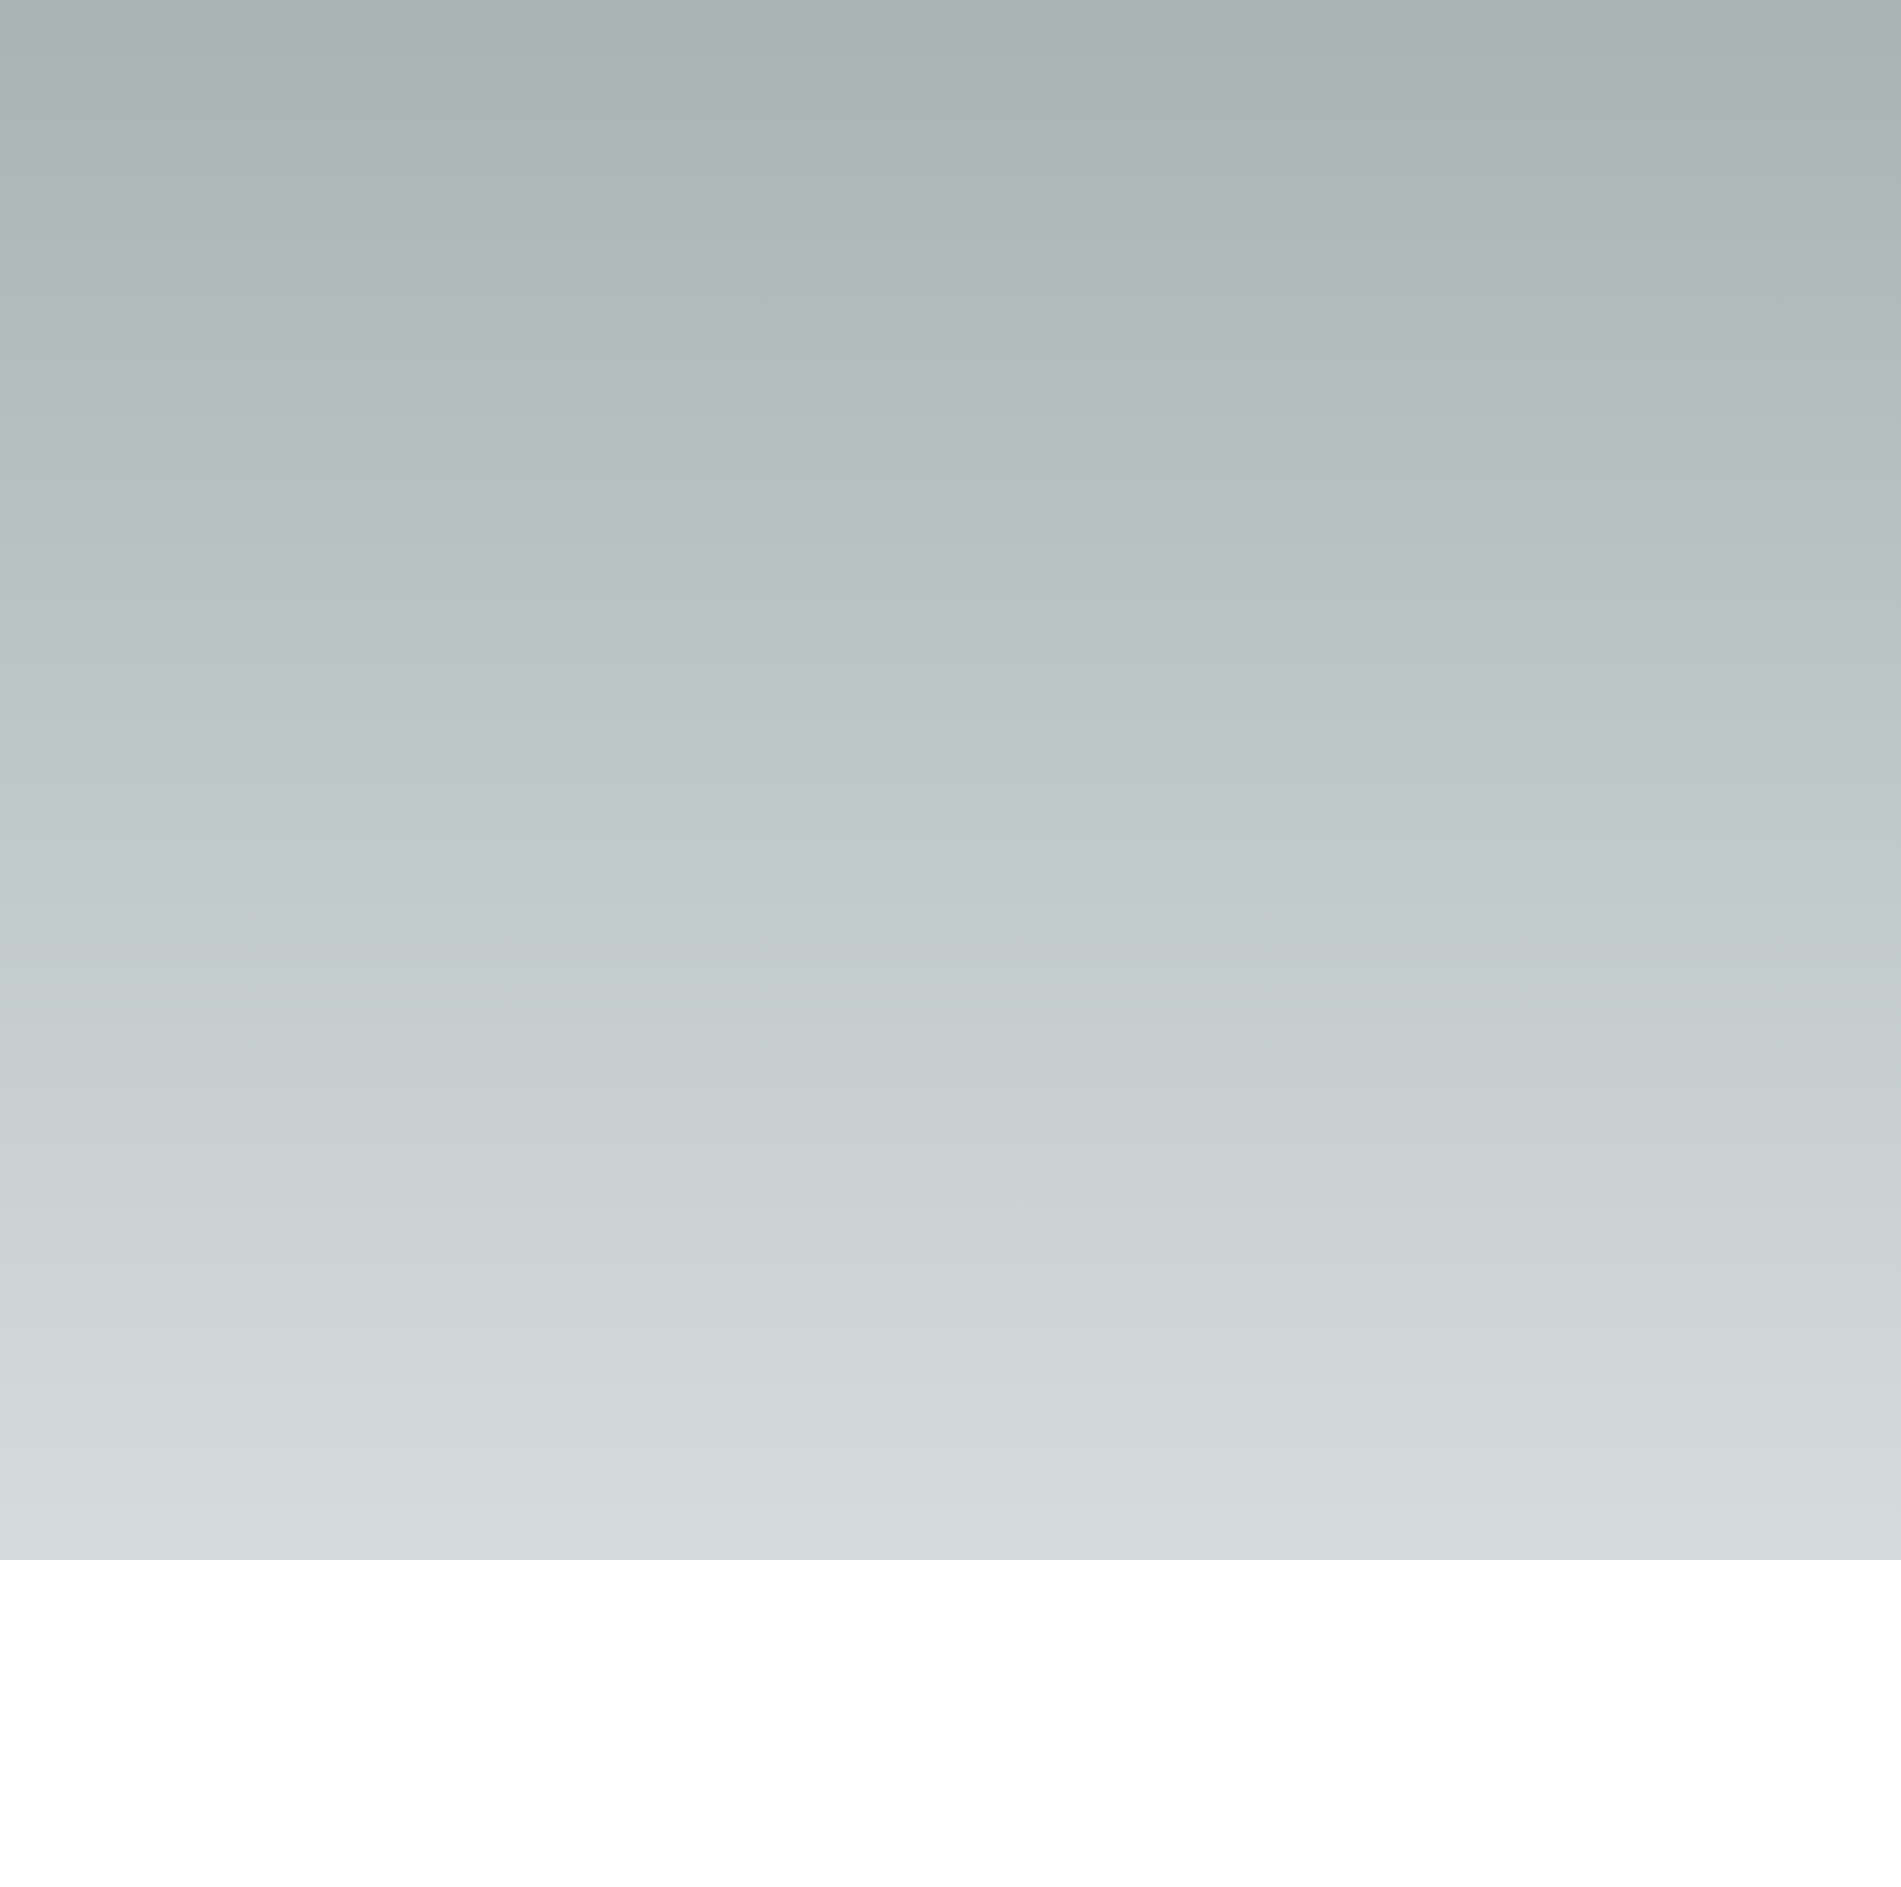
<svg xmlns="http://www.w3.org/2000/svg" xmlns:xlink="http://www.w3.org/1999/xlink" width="1901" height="1887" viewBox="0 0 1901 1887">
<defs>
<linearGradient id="g1" gradientUnits="userSpaceOnUse" x1="951" y1="0" x2="951" y2="1560"><stop offset="0" stop-color="#aab3b3"/><stop offset="1" stop-color="#d4dcdc"/></linearGradient>
</defs>
<rect width="100%" height="100%" fill="#ffffff"/>
<rect fill="url(#g1)" x="0" y="0" width="1901" height="1560"/>
</svg>
